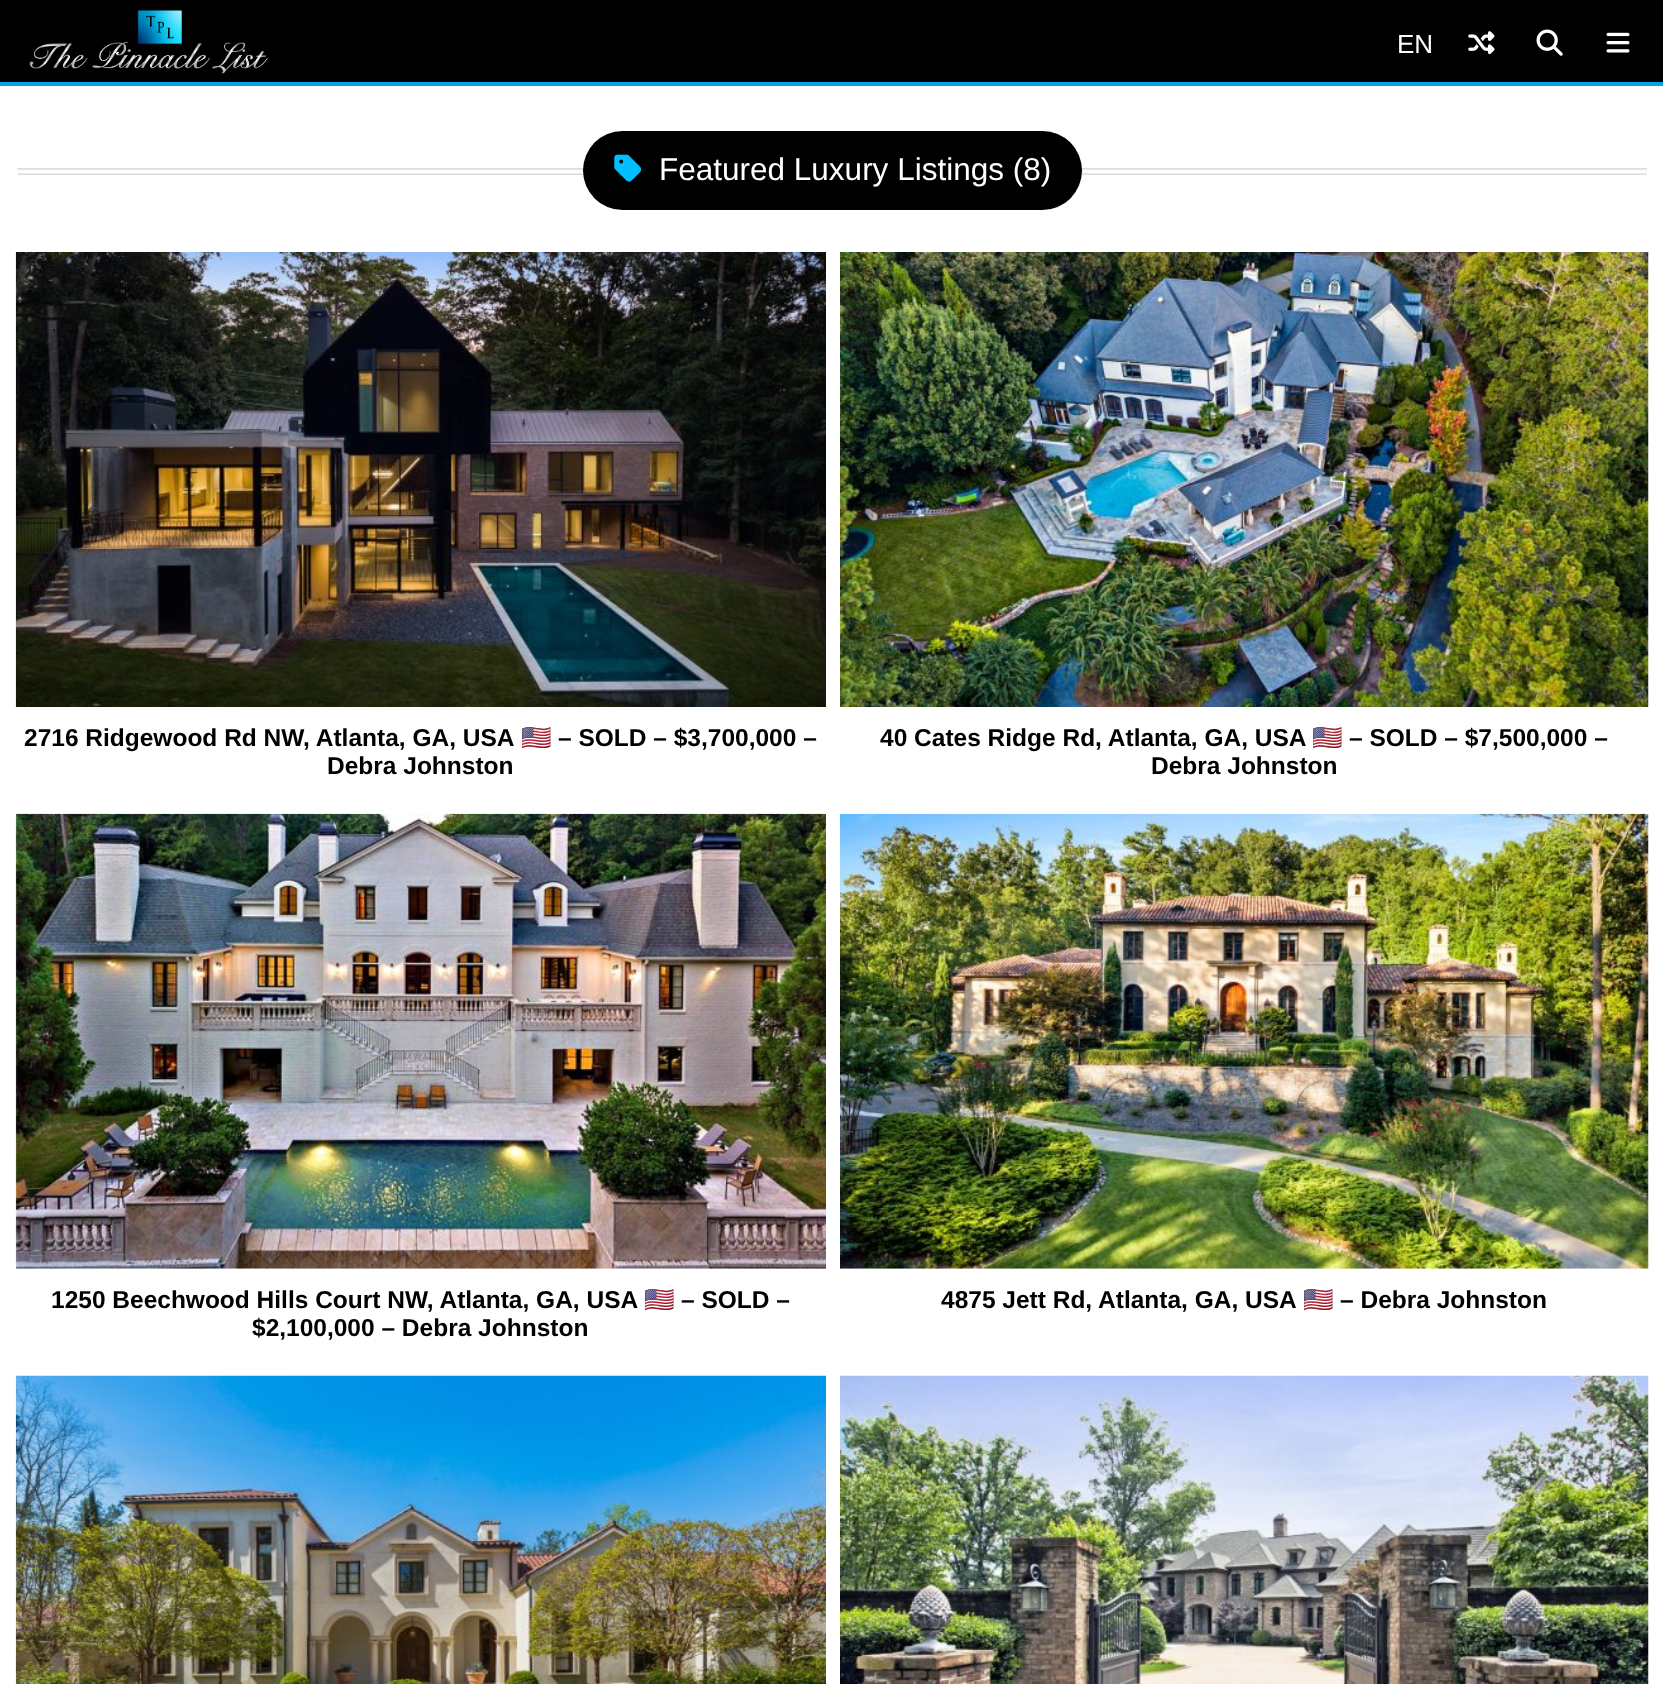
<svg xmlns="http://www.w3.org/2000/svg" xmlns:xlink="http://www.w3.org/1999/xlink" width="1663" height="1684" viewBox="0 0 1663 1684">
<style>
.cls-1{font:26px Liberation Sans;fill:#ffffff}
.cls-2{font:31.5px Liberation Sans;fill:#ffffff}
.cls-3{font:bold 24.5px Liberation Sans;fill:#000000}
.cls-4{font:bold 24.5px Noto Color Emoji;fill:#000000}
</style>
<rect width="100%" height="100%" fill="#000000"/>
<rect fill="#ffffff" x="0" y="86" width="1663" height="1598"/>
<rect fill="#00a4e8" x="0" y="82" width="1663" height="4"/>
<image xlink:href="image0.png" x="29" y="10" width="239" height="64"/>
<image xlink:href="image1.png" x="1468" y="31" width="27" height="24"/>
<image xlink:href="image2.png" x="1536" y="29" width="27" height="27"/>
<image xlink:href="image3.png" x="1606" y="32" width="24" height="21"/>
<image xlink:href="image4.png" x="17" y="168" width="1630" height="7"/>
<rect fill="#000000" x="583" y="131" width="499" height="79" rx="39.5"/>
<image xlink:href="image5.png" x="614" y="154" width="28" height="28"/>
<image xlink:href="image6.png" x="15" y="252" width="811" height="455"/>
<image xlink:href="image7.png" x="840" y="252" width="809" height="455"/>
<image xlink:href="image8.png" x="15" y="813" width="811" height="456"/>
<image xlink:href="image9.png" x="840" y="813" width="809" height="456"/>
<image xlink:href="image10.png" x="15" y="1375" width="811" height="309"/>
<image xlink:href="image11.png" x="840" y="1375" width="809" height="309"/>
<text class="cls-1" x="1397" y="53">EN</text>
<text class="cls-2" x="659" y="180">Featured Luxury Listings (8)</text>
<text class="cls-3" x="24" y="746">2716 Ridgewood Rd NW, Atlanta, GA, USA</text>
<text class="cls-4" x="521" y="746">🇺🇸</text>
<text class="cls-3" x="558" y="746">– SOLD – $3,700,000 –</text>
<text class="cls-3" x="327" y="774">Debra Johnston</text>
<text class="cls-3" x="880" y="746">40 Cates Ridge Rd, Atlanta, GA, USA</text>
<text class="cls-4" x="1312" y="746">🇺🇸</text>
<text class="cls-3" x="1349" y="746">– SOLD – $7,500,000 –</text>
<text class="cls-3" x="1151" y="774">Debra Johnston</text>
<text class="cls-3" x="51" y="1308">1250 Beechwood Hills Court NW, Atlanta, GA, USA</text>
<text class="cls-4" x="644" y="1308">🇺🇸</text>
<text class="cls-3" x="681" y="1308">– SOLD –</text>
<text class="cls-3" x="252" y="1336">$2,100,000 – Debra Johnston</text>
<text class="cls-3" x="941" y="1308">4875 Jett Rd, Atlanta, GA, USA</text>
<text class="cls-4" x="1303" y="1308">🇺🇸</text>
<text class="cls-3" x="1340" y="1308">– Debra Johnston</text>
</svg>
